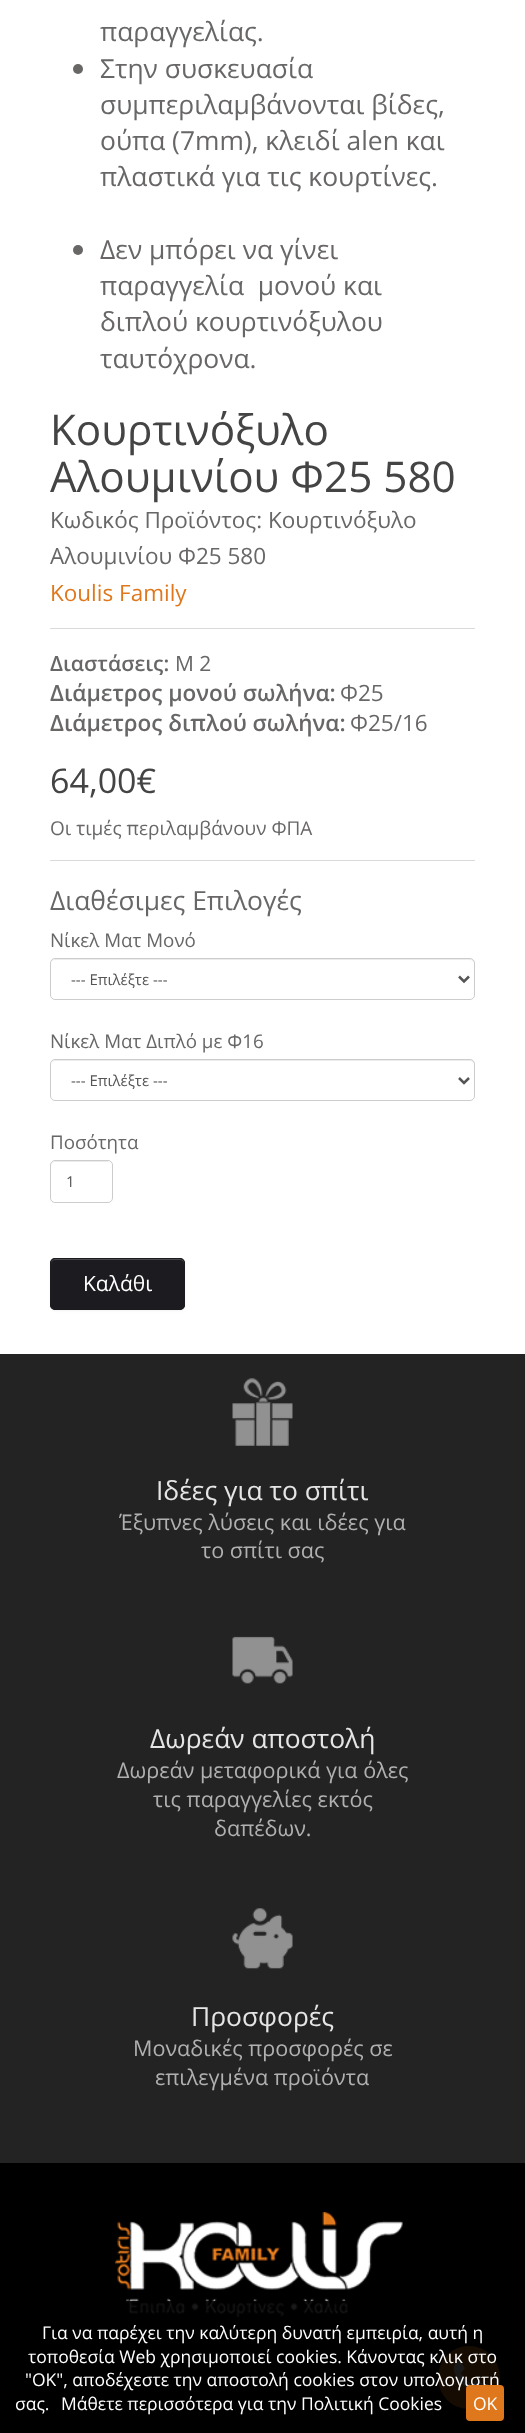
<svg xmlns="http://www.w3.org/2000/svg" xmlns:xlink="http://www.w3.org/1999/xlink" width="525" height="2433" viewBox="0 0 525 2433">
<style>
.cls-1{font:26.4px Open Sans;fill:#696666}
.cls-2{font:42.25px Open Sans;fill:#444444}
.cls-3{font:22.5px Open Sans;fill:#696666}
.cls-4{font:22.5px Open Sans;fill:#df781c}
.cls-5{font:600 21px Open Sans;fill:#696666}
.cls-6{font:21px Open Sans;fill:#696666}
.cls-7{font:600 22.5px Open Sans;fill:#696666}
.cls-8{font:34px Open Sans;fill:#444444}
.cls-9{font:19px Open Sans;fill:#696666}
.cls-10{font:18.75px Open Sans;fill:#696666}
.cls-11{font:15px Open Sans;fill:#555555}
.cls-12{font:21px Open Sans;fill:#ffffff}
.cls-13{font:26.4px Open Sans;fill:#e5e5e5}
.cls-14{font:21.6px Open Sans;fill:#b0b0b0}
.cls-15{font:17.5px Open Sans;fill:#ffffff}
</style>
<rect width="100%" height="100%" fill="#ffffff"/>
<circle fill="#696666" cx="78" cy="69" r="5"/>
<circle fill="#696666" cx="78" cy="250" r="5"/>
<rect fill="#dadada" x="50" y="628" width="425" height="1"/>
<rect fill="#dadada" x="50" y="860" width="425" height="1"/>
<path fill="#ececec" d="M55 960H470C472 960 474 962 474 964C474 961 473 959 470 959H55C54 959 52 960 52 961L51 964C51 962 53 960 55 960Z"/>
<rect fill="none" stroke="#cccccc" x="50.5" y="958.5" width="424" height="41" rx="4.5"/>
<path fill="none" stroke="#555555" stroke-width="2.5" d="M459 976.5L464 981.5L469 976.5"/>
<path fill="#ececec" d="M55 1061H470C472 1061 474 1063 474 1065C474 1062 473 1060 470 1060H55C54 1060 52 1061 52 1062L51 1065C51 1063 53 1061 55 1061Z"/>
<rect fill="none" stroke="#cccccc" x="50.5" y="1059.5" width="424" height="41" rx="4.5"/>
<path fill="none" stroke="#555555" stroke-width="2.5" d="M459 1078L464 1083L469 1078"/>
<path fill="#ececec" d="M55 1162H108C110 1162 111 1164 111 1166C111 1159 103 1161 98 1161H64C59 1161 51 1159 51 1166C51 1164 53 1162 55 1162Z"/>
<rect fill="none" stroke="#cccccc" x="50.5" y="1160.5" width="62" height="42" rx="4.5"/>
<rect fill="#000000" fill-opacity="0.05" filter="blur(1px)" x="50" y="1259" width="135" height="52" rx="5"/>
<rect fill="#1c1b20" x="50" y="1258" width="135" height="52" rx="5"/>
<path fill="#49494d" d="M55 1260H180C182 1260 184 1262 184 1264V1263C184 1261 182 1259 180 1259H55C53 1259 51 1261 51 1263V1264C51 1262 53 1260 55 1260Z"/>
<rect fill="none" stroke="#1c1b20" x="50.5" y="1258.5" width="134" height="51" rx="4.5"/>
<rect fill="#232323" x="0" y="1354" width="525" height="809"/>
<image xlink:href="image0.png" x="232" y="1378" width="61" height="68"/>
<image xlink:href="image1.png" x="232" y="1636" width="61" height="48"/>
<image xlink:href="image2.png" x="232" y="1908" width="61" height="61"/>
<rect fill="#000000" x="0" y="2163" width="525" height="270"/>
<image xlink:href="image3.png" x="115" y="2212" width="288" height="105"/>
<rect fill="#df781c" x="438" y="2346" width="62" height="63" rx="31"/>
<image xlink:href="image4.png" x="453" y="2361" width="31" height="27"/>
<rect fill="#000000" fill-opacity="0.9" x="126" y="2301" width="374" height="108"/>
<text class="cls-1"><tspan x="100" y="41">παραγγελίας.</tspan><tspan x="100" y="78">Στην συσκευασία</tspan><tspan x="100" y="114">συμπεριλαμβάνονται βίδες,</tspan><tspan x="100" y="150">ούπα (7mm), κλειδί alen και</tspan><tspan x="100" y="186">πλαστικά για τις κουρτίνες.</tspan></text>
<text class="cls-1" xml:space="preserve"><tspan x="100" y="259">Δεν μπόρει να γίνει</tspan><tspan x="100" y="295">παραγγελία  μονού και</tspan><tspan x="100" y="331">διπλού κουρτινόξυλου</tspan><tspan x="100" y="368">ταυτόχρονα.</tspan></text>
<text class="cls-2"><tspan x="50" y="445">Κουρτινόξυλο</tspan><tspan x="50" y="492">Αλουμινίου Φ25 580</tspan></text>
<text class="cls-3"><tspan x="50" y="528">Κωδικός Προϊόντος: Κουρτινόξυλο</tspan><tspan x="50" y="564">Αλουμινίου Φ25 580</tspan></text>
<text class="cls-4" x="50" y="601">Koulis Family</text>
<text class="cls-5" x="50" y="671">Διαστάσεις:</text>
<text class="cls-6" x="175" y="671">Μ 2</text>
<text class="cls-7" x="50" y="701">Διάμετρος μονού σωλήνα:</text>
<text class="cls-3" x="340" y="701">Φ25</text>
<text class="cls-7" x="50" y="731">Διάμετρος διπλού σωλήνα:</text>
<text class="cls-3" x="350" y="731">Φ25/16</text>
<text class="cls-8" x="50" y="793">64,00€</text>
<text class="cls-9" x="50" y="835">Οι τιμές περιλαμβάνουν ΦΠΑ</text>
<text class="cls-1" x="50" y="910">Διαθέσιμες Επιλογές</text>
<text class="cls-10" x="50" y="947">Νίκελ Ματ Μονό</text>
<text class="cls-11" x="71" y="985">--- Επιλέξτε ---</text>
<text class="cls-10" x="50" y="1048">Νίκελ Ματ Διπλό με Φ16</text>
<text class="cls-11" x="71" y="1086">--- Επιλέξτε ---</text>
<text class="cls-10" x="50" y="1149">Ποσότητα</text>
<text class="cls-11" x="66" y="1187">1</text>
<text class="cls-12" x="83" y="1291">Καλάθι</text>
<text class="cls-13" x="156" y="1500">Ιδέες για το σπίτι</text>
<text class="cls-14" x="119" y="1530">Έξυπνες λύσεις και ιδέες για</text>
<text class="cls-14" x="201" y="1558">το σπίτι σας</text>
<text class="cls-13" x="150" y="1748">Δωρεάν αποστολή</text>
<text class="cls-14" x="117" y="1778">Δωρεάν μεταφορικά για όλες</text>
<text class="cls-14" x="153" y="1807">τις παραγγελίες εκτός</text>
<text class="cls-14" x="214" y="1836">δαπέδων.</text>
<text class="cls-13" x="191" y="2026">Προσφορές</text>
<text class="cls-14" x="133" y="2056">Μοναδικές προσφορές σε</text>
<text class="cls-14" x="155" y="2085">επιλεγμένα προϊόντα</text>
<text class="cls-15" x="42" y="2339">Για να παρέχει την καλύτερη δυνατή εμπειρία, αυτή η</text>
<text class="cls-15" x="28" y="2363">τοποθεσία Web χρησιμοποιεί cookies. Κάνοντας κλικ στο</text>
<text class="cls-15" x="25" y="2386">"OK", αποδέχεστε την αποστολή cookies στον υπολογιστή</text>
<text class="cls-15" x="15" y="2410">σας.</text>
<text class="cls-15" x="61" y="2410">Μάθετε περισσότερα για την Πολιτική Cookies</text>
<rect fill="#df781c" x="466" y="2385" width="38" height="36" rx="4"/>
<text class="cls-15" x="473" y="2410">OK</text>
</svg>
